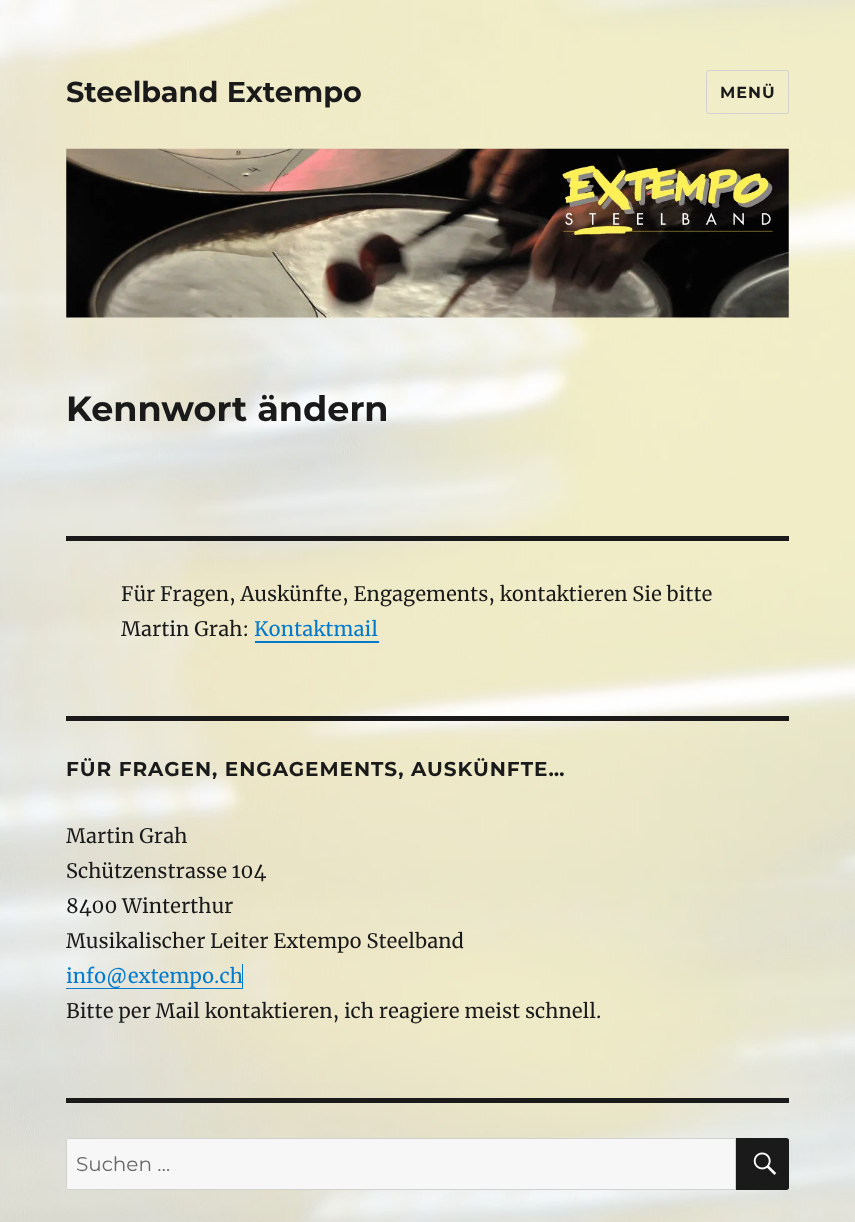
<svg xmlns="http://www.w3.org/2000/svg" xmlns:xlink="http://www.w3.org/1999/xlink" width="855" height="1222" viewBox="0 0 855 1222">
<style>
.cls-1{font:100 28.75px Montserrat;fill:#1a1a1a}
.cls-2{font:100 16px Montserrat;letter-spacing:1px;fill:#1a1a1a}
.cls-3{font:100 35px Montserrat;fill:#1a1a1a}
.cls-4{font:20px Merriweather;fill:#1a1a1a}
.cls-5{font:20px Merriweather;fill:#007acc}
.cls-6{font:100 20px Montserrat;letter-spacing:0.95px;fill:#1a1a1a}
.cls-7{font:100 20px 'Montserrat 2';fill:#686868}
</style>
<rect width="100%" height="100%" fill="#ffffff"/>
<image xlink:href="image0.png" x="0" y="0" width="855" height="1222"/>
<rect fill="none" stroke="#d1d1d1" x="706.5" y="70.5" width="82" height="43" rx="2"/>
<image xlink:href="image1.png" x="66" y="148" width="723" height="170"/>
<rect fill="#1a1a1a" x="66" y="536" width="723" height="5"/>
<path fill="#007acc" d="M255 641V643H379V618V641Z"/>
<rect fill="#1a1a1a" x="66" y="716" width="723" height="5"/>
<path fill="#007acc" d="M66 964V989H243V964H242V988H66Z"/>
<rect fill="#1a1a1a" x="66" y="1098" width="723" height="5"/>
<path fill="#f7f7f7" stroke="#d1d1d1" d="M68.5 1138.5H735.5V1189.5H68.5C67.5 1189.5 66.5 1188.5 66.5 1187.5V1140.5C66.5 1139.5 67.5 1138.5 68.5 1138.5Z"/>
<path fill="#1a1a1a" d="M736 1138H786.5C788 1138 789 1139 789 1140.5V1187.5C789 1189 788 1190 786.5 1190H736Z"/>
<image xlink:href="image2.png" x="753" y="1152" width="24" height="23"/>
<text class="cls-1" x="66" y="102">Steelband Extempo</text>
<text class="cls-2" x="720" y="98">MENÜ</text>
<text class="cls-3" x="66" y="421">Kennwort ändern</text>
<text class="cls-4"><tspan x="121" y="601">Für Fragen, Auskünfte, Engagements, kontaktieren Sie bitte</tspan><tspan x="121" y="636">Martin Grah:</tspan></text>
<text class="cls-5" x="254" y="636">Kontaktmail</text>
<text class="cls-6" x="66" y="776">FÜR FRAGEN, ENGAGEMENTS, AUSKÜNFTE…</text>
<text class="cls-4"><tspan x="66" y="843">Martin Grah</tspan><tspan x="66" y="878">Schützenstrasse 104</tspan><tspan x="66" y="913">8400 Winterthur</tspan><tspan x="66" y="948">Musikalischer Leiter Extempo Steelband</tspan></text>
<text class="cls-5" x="66" y="983">info@extempo.ch</text>
<text class="cls-4" x="66" y="1018">Bitte per Mail kontaktieren, ich reagiere meist schnell.</text>
<text class="cls-7" x="76" y="1171">Suchen …</text>
</svg>
